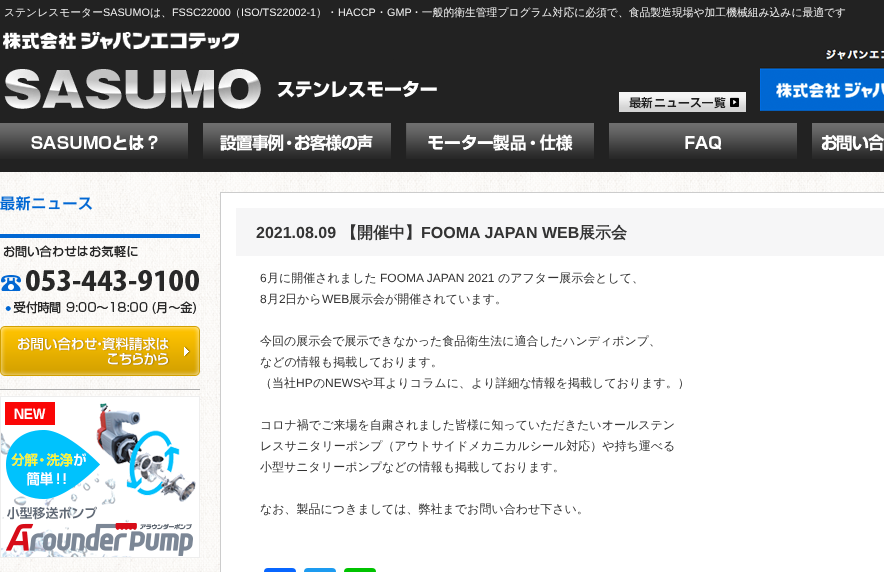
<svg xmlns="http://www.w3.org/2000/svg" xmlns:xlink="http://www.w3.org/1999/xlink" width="884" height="572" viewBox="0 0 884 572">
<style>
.cls-1{font:500 10.8px WenQuanYi Zen Hei;fill:#f2f2f2}
.cls-2{font:10.8px Liberation Sans;fill:#f2f2f2}
.cls-3{font:bold 16px Liberation Sans;fill:#333333}
.cls-4{font:bold 16px WenQuanYi Zen Hei;fill:#333333}
.cls-5{font:12px Liberation Sans;fill:#333333}
.cls-6{font:500 12px WenQuanYi Zen Hei;fill:#333333}
</style>
<rect width="100%" height="100%" fill="#ffffff"/>
<image xlink:href="image0.png" x="0" y="172" width="884" height="400"/>
<rect fill="#222222" x="0" y="0" width="884" height="172"/>
<image xlink:href="image1.png" x="3" y="32" width="434" height="77"/>
<image xlink:href="image2.png" x="619" y="92" width="127" height="20"/>
<image xlink:href="image3.png" x="760" y="48" width="124" height="63"/>
<image xlink:href="image4.png" x="0" y="123" width="188" height="36"/>
<image xlink:href="image5.png" x="203" y="123" width="188" height="36"/>
<image xlink:href="image6.png" x="406" y="123" width="188" height="36"/>
<image xlink:href="image7.png" x="609" y="123" width="188" height="36"/>
<image xlink:href="image8.png" x="812" y="123" width="72" height="36"/>
<image xlink:href="image9.png" x="0" y="192" width="200" height="27"/>
<image xlink:href="image10.png" x="0" y="234" width="200" height="156"/>
<image xlink:href="image11.png" x="0" y="396" width="200" height="162"/>
<rect fill="#ffffff" stroke="#cccccc" x="220.5" y="192.5" width="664" height="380"/>
<rect fill="#f6f6f7" x="236" y="208" width="648" height="48"/>
<rect fill="#0866ff" x="264" y="568" width="32" height="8" rx="4"/>
<rect fill="#1d9bf0" x="304" y="568" width="32" height="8" rx="4"/>
<rect fill="#00c300" x="344" y="568" width="32" height="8" rx="4"/>
<text class="cls-1" x="4" y="16">ステンレスモーター</text>
<text class="cls-2" x="103" y="16">SASUMO</text>
<text class="cls-1" x="150" y="16">は、</text>
<text class="cls-2" x="172" y="16">FSSC22000</text>
<text class="cls-1" x="230" y="16">（</text>
<text class="cls-2" x="241" y="16">ISO/TS22002-1</text>
<text class="cls-1" x="316" y="16">）・</text>
<text class="cls-2" x="338" y="16">HACCP</text>
<text class="cls-1" x="376" y="16">・</text>
<text class="cls-2" x="387" y="16">GMP</text>
<text class="cls-1" x="411" y="16">・一般的衛生管理プログラム対応に必須で、食品製造現場や加工機械組み込みに最適です</text>
<text class="cls-3" x="256" y="238">2021.08.09</text>
<text class="cls-4" x="341" y="238">【開催中】</text>
<text class="cls-3" x="421" y="238">FOOMA JAPAN WEB</text>
<text class="cls-4" x="579" y="238">展示会</text>
<text class="cls-5" x="260" y="282">6</text>
<text class="cls-6" x="267" y="282">月に開催されました</text>
<text class="cls-5" x="380" y="282">FOOMA JAPAN 2021</text>
<text class="cls-6" x="498" y="282">のアフター展示会として、</text>
<text class="cls-5" x="260" y="303">8</text>
<text class="cls-6" x="267" y="303">月</text>
<text class="cls-5" x="279" y="303">2</text>
<text class="cls-6" x="285" y="303">日から</text>
<text class="cls-5" x="322" y="303">WEB</text>
<text class="cls-6" x="349" y="303">展示会が開催されています。</text>
<text class="cls-6"><tspan x="260" y="345">今回の展示会で展示できなかった食品衛生法に適合したハンディポンプ、</tspan><tspan x="260" y="366">などの情報も掲載しております。</tspan><tspan x="260" y="387">（当社</tspan></text>
<text class="cls-5" x="296" y="387">HP</text>
<text class="cls-6" x="313" y="387">の</text>
<text class="cls-5" x="325" y="387">NEWS</text>
<text class="cls-6" x="361" y="387">や耳よりコラムに、より詳細な情報を掲載しております。）</text>
<text class="cls-6"><tspan x="260" y="429">コロナ禍でご来場を自粛されました皆様に知っていただきたいオールステン</tspan><tspan x="260" y="450">レスサニタリーポンプ（アウトサイドメカニカルシール対応）や持ち運べる</tspan><tspan x="260" y="471">小型サニタリーポンプなどの情報も掲載しております。</tspan></text>
<text class="cls-6" x="260" y="513">なお、製品につきましては、弊社までお問い合わせ下さい。</text>
</svg>
